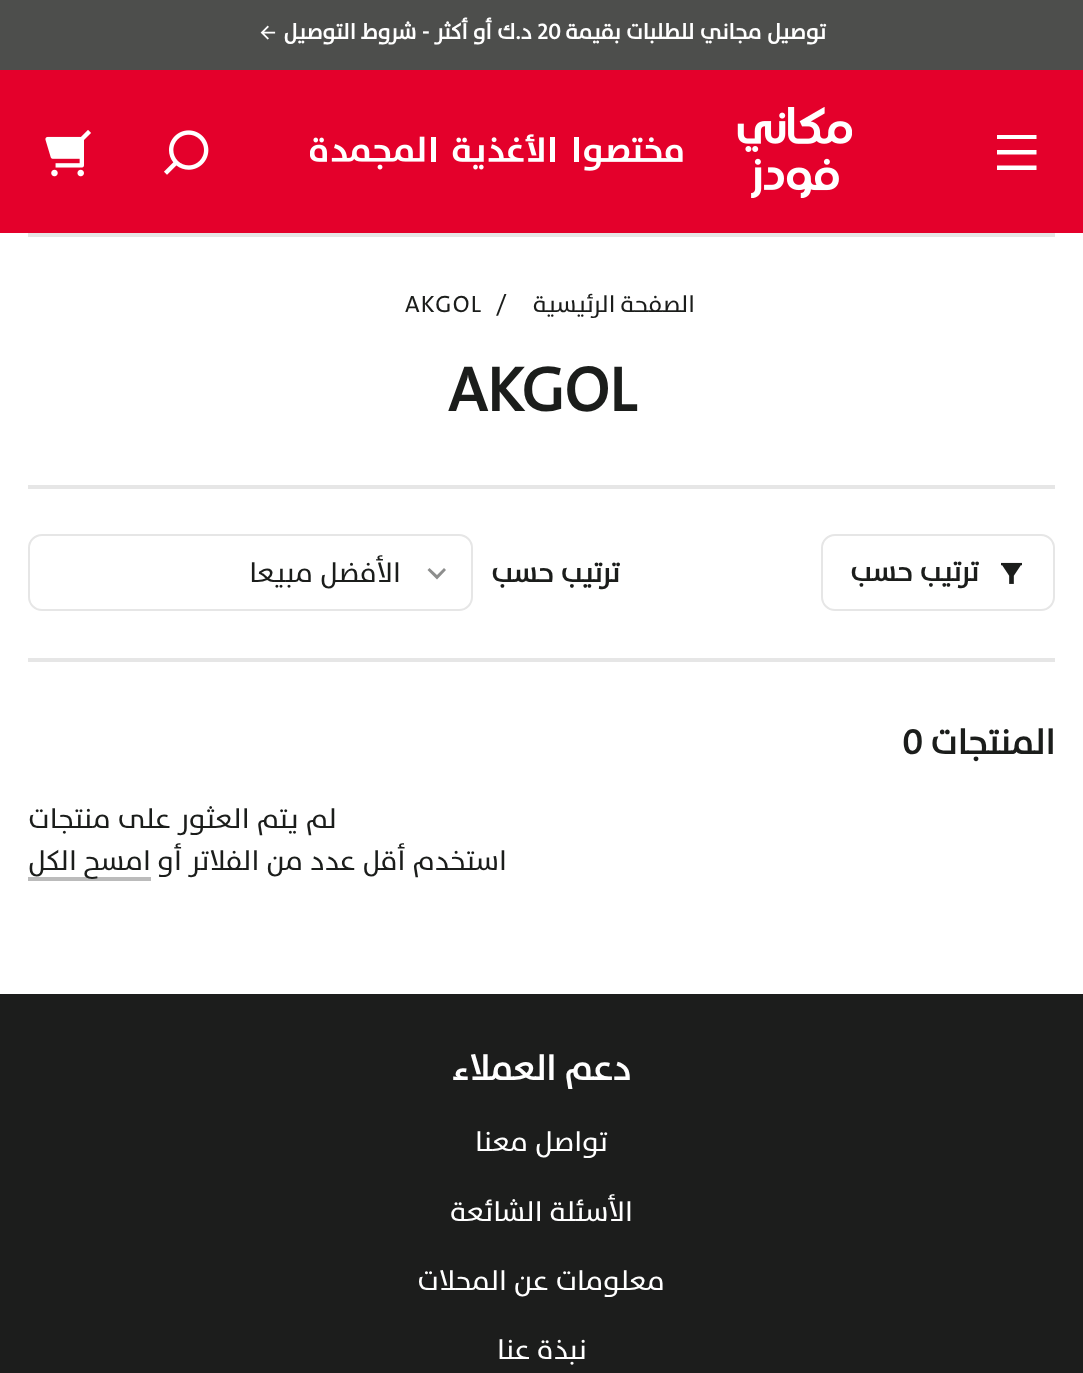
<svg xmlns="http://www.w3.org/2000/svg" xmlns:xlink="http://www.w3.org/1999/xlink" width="1083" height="1373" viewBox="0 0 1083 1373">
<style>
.cls-1{font:bold 21.75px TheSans;direction:rtl;fill:#ffffff}
.cls-2{font:bold 21.75px TheSans;fill:#ffffff}
.cls-3{font:23.75px TheSans;letter-spacing:1.25px;direction:rtl;fill:#1b1d1b}
.cls-4{font:23.75px TheSans;letter-spacing:1.25px;fill:#1b1d1b}
.cls-5{font:bold 63px TheSans;fill:#1b1d1b}
.cls-6{font:bold 28px TheSans;direction:rtl;fill:#1b1d1b}
.cls-7{font:28px TheSans;direction:rtl;fill:#1b1d1b}
.cls-8{font:bold 35px TheSans;direction:rtl;fill:#1b1d1b}
.cls-9{font:bold 35px TheSans;fill:#1b1d1b}
.cls-10{font:bold 35px TheSans;direction:rtl;fill:#ffffff}
.cls-11{font:28px TheSans;direction:rtl;fill:#ffffff}
</style>
<rect width="100%" height="100%" fill="#ffffff"/>
<rect fill="#4d4e4c" x="0" y="0" width="1083" height="70"/>
<image xlink:href="image0.png" x="260" y="25" width="16" height="15"/>
<rect fill="#e4002b" x="0" y="70" width="1083" height="163"/>
<path fill="#ffffff" d="M997 135H1036.5V139H997ZM997 150H1036.5V154.5H997ZM997 165.5H1036.5V170H997Z"/>
<image xlink:href="image1.png" x="310" y="107" width="542" height="91"/>
<image xlink:href="image2.png" x="164" y="130" width="45" height="45"/>
<image xlink:href="image3.png" x="45" y="130" width="46" height="47"/>
<rect fill="#e6e6e6" x="28" y="233" width="1027" height="4"/>
<rect fill="#e6e6e6" x="28" y="485" width="1027" height="4"/>
<rect fill="none" stroke="#e6e6e6" stroke-width="2" x="822" y="535" width="232" height="75" rx="13"/>
<image xlink:href="image4.png" x="1001" y="562" width="21" height="22"/>
<path fill="#8d8e8d" d="M437 575L444 568L446 570L437 579.5L427.5 570L429.5 568Z"/>
<rect fill="none" stroke="#e6e6e6" stroke-width="2" x="29" y="535" width="443" height="75" rx="13"/>
<rect fill="#e6e6e6" x="28" y="658" width="1027" height="4"/>
<rect fill="#bbbbbb" x="28" y="877" width="123" height="4"/>
<rect fill="#1c1d1c" x="0" y="994" width="1083" height="379"/>
<text class="cls-1" x="826" y="39">توصيل مجاني للطلبات بقيمة</text>
<text class="cls-2" x="537" y="39">20</text>
<text class="cls-1" x="532" y="39">د.ك أو أكثر - شروط التوصيل</text>
<text class="cls-3" x="695" y="312" word-spacing="-1">الصفحة الرئيسية</text>
<text class="cls-4" x="496" y="312">/</text>
<text class="cls-4" x="405" y="312">AKGOL</text>
<text class="cls-5" x="448" y="411">AKGOL</text>
<text class="cls-6" x="979" y="581">ترتيب حسب</text>
<text class="cls-6" x="620" y="582">ترتيب حسب</text>
<text class="cls-7" x="401" y="582">الأفضل مبيعا</text>
<text class="cls-8" x="1055" y="754">المنتجات</text>
<text class="cls-9" x="902" y="754">0</text>
<text class="cls-7" x="337" y="828">لم يتم العثور على منتجات</text>
<text class="cls-7" x="507" y="870">استخدم أقل عدد من الفلاتر أو</text>
<text class="cls-7" x="151" y="870">امسح الكل</text>
<text class="cls-10" x="631" y="1080">دعم العملاء</text>
<text class="cls-11" x="608" y="1151">تواصل معنا</text>
<text class="cls-11" x="633" y="1221">الأسئلة الشائعة</text>
<text class="cls-11" x="665" y="1290">معلومات عن المحلات</text>
<text class="cls-11" x="587" y="1359">نبذة عنا</text>
</svg>
